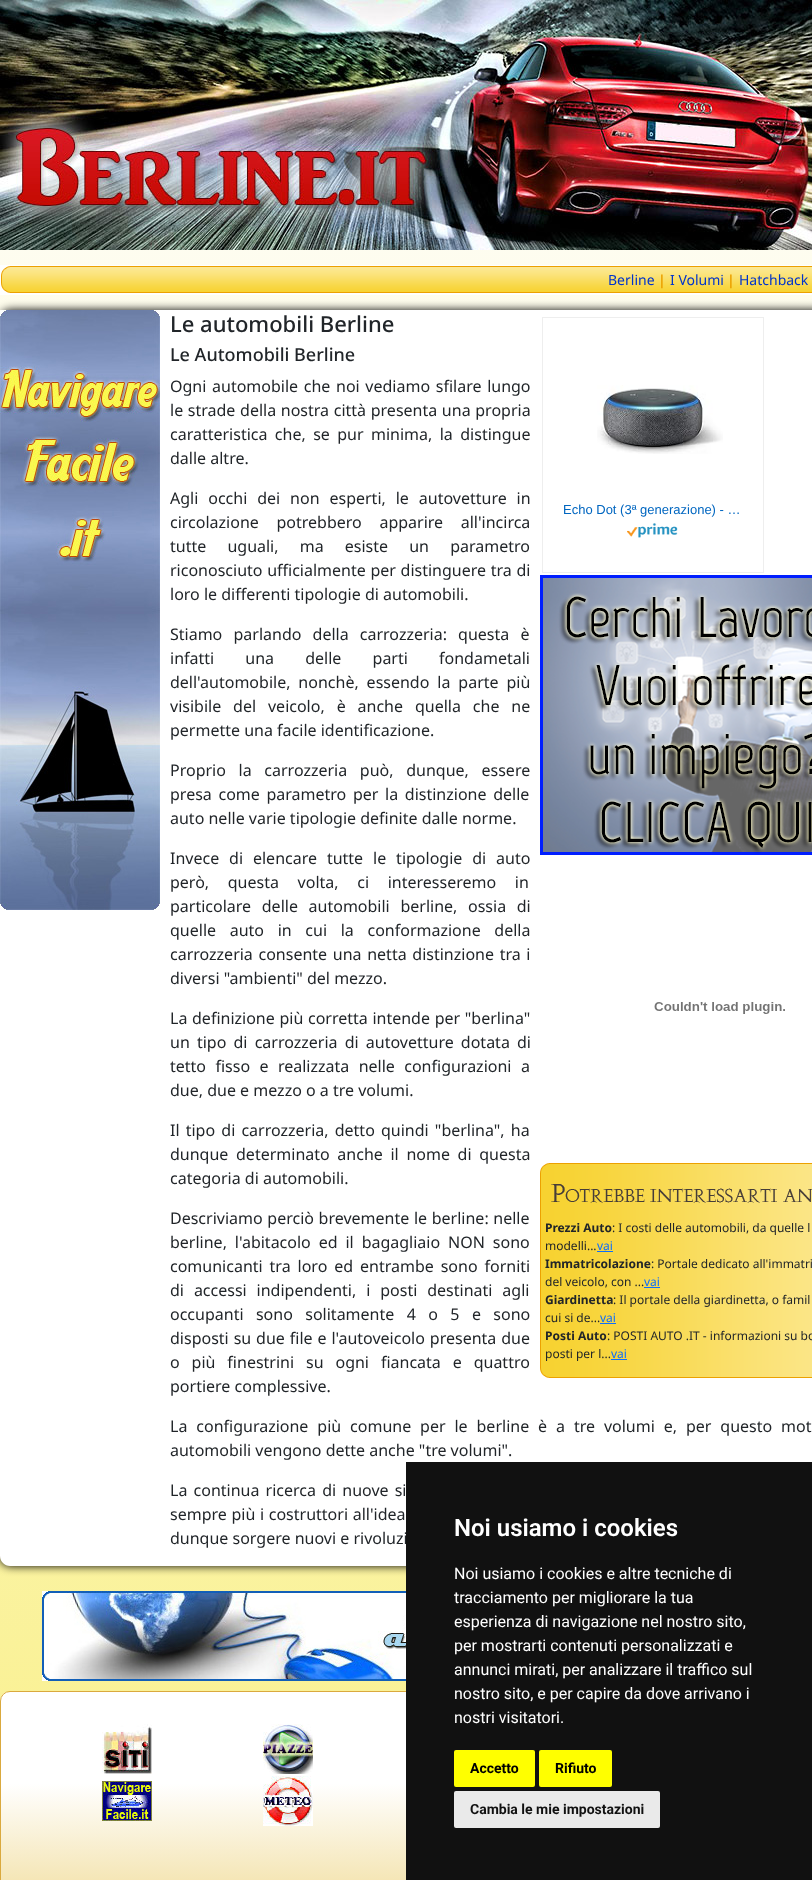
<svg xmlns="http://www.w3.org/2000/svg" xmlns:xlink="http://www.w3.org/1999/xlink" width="812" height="1880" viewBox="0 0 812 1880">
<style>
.cls-1{font:14px Noto Sans;fill:#0033cc}
.cls-2{font:bold 14px Noto Sans;fill:#eca101}
.cls-3{font:500 22px Noto Sans;fill:#212529}
.cls-4{font:500 18px Noto Sans;fill:#212529}
.cls-5{font:16px Noto Sans;fill:#212529}
.cls-6{font:13px Liberation Sans;fill:#0066c0}
.cls-7{font:bold 12px Noto Sans;fill:#212529}
.cls-8{font:12px Noto Sans;fill:#212529}
.cls-9{font:12px Noto Sans;fill:#0d6efd}
.cls-10{font:600 24px Roboto;fill:#ffffff}
.cls-11{font:16px Roboto;fill:#ffffff}
.cls-12{font:bold 14px Roboto;fill:#000000}
.cls-13{font:bold 14px Roboto;fill:#111111}
</style>
<defs>
<linearGradient id="g1" gradientUnits="userSpaceOnUse" x1="406" y1="0" x2="406" y2="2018"><stop offset="0" stop-color="#ffffff"/><stop offset="1" stop-color="#f9ef83"/></linearGradient>
<clipPath id="clip1"><rect x="0" y="1691" width="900" height="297" rx="10"/></clipPath>
<linearGradient id="g2" gradientUnits="userSpaceOnUse" x1="450" y1="1692" x2="450" y2="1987"><stop offset="0" stop-color="#ffffff"/><stop offset="0.31" stop-color="#ffffff"/><stop offset="0.73" stop-color="#f2dfa2"/><stop offset="1" stop-color="#f7d333"/></linearGradient>
</defs>
<rect width="100%" height="100%" fill="#ffffff"/>
<rect fill="url(#g1)" x="0" y="250" width="812" height="1451"/>
<image xlink:href="image0.png" x="0" y="0" width="812" height="250"/>
<rect fill="#fffffe" x="0" y="265" width="812" height="30"/>
<image xlink:href="image1.png" x="1" y="266" width="811" height="27"/>
<rect fill="#000000" filter="blur(5px)" x="0" y="310" width="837" height="1256" rx="10"/>
<path fill="#ffffff" d="M0 310H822V1556C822 1561.5 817.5 1566 812 1566H10C4.5 1566 0 1561.5 0 1556Z"/>
<image xlink:href="image2.png" x="0" y="310" width="160" height="600"/>
<rect fill="none" stroke="#eeeeee" x="542.5" y="317.5" width="221" height="255"/>
<image xlink:href="image3.png" x="597" y="385" width="126" height="69"/>
<image xlink:href="image4.png" x="627" y="523" width="51" height="15"/>
<image xlink:href="image5.png" x="540" y="575" width="272" height="280"/>
<image xlink:href="image6.png" x="654" y="1002" width="131" height="12"/>
<image xlink:href="image7.png" x="540" y="1163" width="272" height="56"/>
<image xlink:href="image8.png" x="540" y="1219" width="272" height="144"/>
<rect fill="#0d6efd" x="597" y="1251" width="16" height="1"/>
<rect fill="#0d6efd" x="644" y="1287" width="16" height="1"/>
<rect fill="#0d6efd" x="600" y="1323" width="16" height="1"/>
<rect fill="#0d6efd" x="611" y="1359" width="16" height="1"/>
<image xlink:href="image9.png" x="540" y="1363" width="272" height="15"/>
<image xlink:href="image10.png" x="42" y="1591" width="364" height="90"/>
<g clip-path="url(#clip1)">
<rect fill="url(#g2)" x="0" y="1692" width="406" height="188"/>
</g>
<rect fill="none" stroke="#daa93e" x="0.5" y="1691.5" width="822" height="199" rx="9.5"/>
<image xlink:href="image11.png" x="102" y="1724" width="50" height="50"/>
<image xlink:href="image12.png" x="263" y="1724" width="50" height="50"/>
<image xlink:href="image13.png" x="102" y="1781" width="50" height="40"/>
<image xlink:href="image14.png" x="263" y="1776" width="50" height="50"/>
<text class="cls-1" x="608" y="285">Berline</text>
<text class="cls-2" x="658" y="285">|</text>
<text class="cls-1" x="670" y="285">I Volumi</text>
<text class="cls-2" x="727" y="285">|</text>
<text class="cls-1" x="739" y="285">Hatchback</text>
<text class="cls-3" x="170" y="332">Le automobili Berline</text>
<text class="cls-4" x="170" y="361">Le Automobili Berline</text>
<text class="cls-5"><tspan x="170" y="392" word-spacing="1.5">Ogni automobile che noi vediamo sfilare lungo</tspan><tspan x="170" y="416" word-spacing="0.5">le strade della nostra città presenta una propria</tspan><tspan x="170" y="440" word-spacing="3.25">caratteristica che, se pur minima, la distingue</tspan><tspan x="170" y="464">dalle altre.</tspan></text>
<text class="cls-5"><tspan x="170" y="504" word-spacing="5.75">Agli occhi dei non esperti, le autovetture in</tspan><tspan x="170" y="528" word-spacing="13.5">circolazione potrebbero apparire all'incirca</tspan><tspan x="170" y="552" word-spacing="17">tutte uguali, ma esiste un parametro</tspan><tspan x="170" y="576" word-spacing="0.5">riconosciuto ufficialmente per distinguere tra di</tspan><tspan x="170" y="600">loro le differenti tipologie di automobili.</tspan></text>
<text class="cls-5"><tspan x="170" y="640" word-spacing="7">Stiamo parlando della carrozzeria: questa è</tspan><tspan x="170" y="664" word-spacing="27">infatti una delle parti fondametali</tspan><tspan x="170" y="688" word-spacing="3.75">dell'automobile, nonchè, essendo la parte più</tspan><tspan x="170" y="712" word-spacing="7.75">visibile del veicolo, è anche quella che ne</tspan><tspan x="170" y="736">permette una facile identificazione.</tspan></text>
<text class="cls-5"><tspan x="170" y="776" word-spacing="8.5">Proprio la carrozzeria può, dunque, essere</tspan><tspan x="170" y="800" word-spacing="2.5">presa come parametro per la distinzione delle</tspan><tspan x="170" y="824">auto nelle varie tipologie definite dalle norme.</tspan></text>
<text class="cls-5"><tspan x="170" y="864" word-spacing="5.75">Invece di elencare tutte le tipologie di auto</tspan><tspan x="170" y="888" word-spacing="14.5">però, questa volta, ci interesseremo in</tspan><tspan x="170" y="912" word-spacing="6.5">particolare delle automobili berline, ossia di</tspan><tspan x="170" y="936" word-spacing="9.5">quelle auto in cui la conformazione della</tspan><tspan x="170" y="960" word-spacing="1.5">carrozzeria consente una netta distinzione tra i</tspan><tspan x="170" y="984">diversi "ambienti" del mezzo.</tspan></text>
<text class="cls-5"><tspan x="170" y="1024" word-spacing="0.5">La definizione più corretta intende per "berlina"</tspan><tspan x="170" y="1048" word-spacing="3">un tipo di carrozzeria di autovetture dotata di</tspan><tspan x="170" y="1072" word-spacing="5.25">tetto fisso e realizzata nelle configurazioni a</tspan><tspan x="170" y="1096">due, due e mezzo o a tre volumi.</tspan></text>
<text class="cls-5"><tspan x="170" y="1136" word-spacing="2">Il tipo di carrozzeria, detto quindi "berlina", ha</tspan><tspan x="170" y="1160" word-spacing="3.5">dunque determinato anche il nome di questa</tspan><tspan x="170" y="1184">categoria di automobili.</tspan></text>
<text class="cls-5"><tspan x="170" y="1224" word-spacing="0.5">Descriviamo perciò brevemente le berline: nelle</tspan><tspan x="170" y="1248" word-spacing="3.75">berline, l'abitacolo ed il bagagliaio NON sono</tspan><tspan x="170" y="1272" word-spacing="2.75">comunicanti tra loro ed entrambe sono forniti</tspan><tspan x="170" y="1296" word-spacing="5.75">di accessi indipendenti, i posti destinati agli</tspan><tspan x="170" y="1320" word-spacing="8.25">occupanti sono solitamente 4 o 5 e sono</tspan><tspan x="170" y="1344" word-spacing="0.75">disposti su due file e l'autoveicolo presenta due</tspan><tspan x="170" y="1368" word-spacing="7.75">o più finestrini su ogni fiancata e quattro</tspan><tspan x="170" y="1392">portiere complessive.</tspan></text>
<text class="cls-5"><tspan x="170" y="1432" word-spacing="4.75">La configurazione più comune per le berline è a tre volumi e, per questo mot</tspan><tspan x="170" y="1456">automobili vengono dette anche "tre volumi".</tspan></text>
<text class="cls-5"><tspan x="170" y="1496" word-spacing="2">La continua ricerca di nuove si</tspan><tspan x="170" y="1520" word-spacing="0.5">sempre più i costruttori all'idea</tspan><tspan x="170" y="1544">dunque sorgere nuovi e rivoluzi</tspan></text>
<text class="cls-6" x="563" y="514">Echo Dot (3ª generazione) - …</text>
<text class="cls-7" x="545" y="1232">Prezzi Auto</text>
<text class="cls-8" x="612" y="1232">: I costi delle automobili, da quelle l</text>
<text class="cls-8" x="545" y="1250">modelli...</text>
<text class="cls-9" x="597" y="1250">vai</text>
<text class="cls-7" x="545" y="1268">Immatricolazione</text>
<text class="cls-8" x="651" y="1268">: Portale dedicato all'immatri</text>
<text class="cls-8" x="545" y="1286">del veicolo, con ...</text>
<text class="cls-9" x="644" y="1286">vai</text>
<text class="cls-7" x="545" y="1304">Giardinetta</text>
<text class="cls-8" x="613" y="1304">: Il portale della giardinetta, o famil</text>
<text class="cls-8" x="545" y="1322">cui si de...</text>
<text class="cls-9" x="600" y="1322">vai</text>
<text class="cls-7" x="545" y="1340">Posti Auto</text>
<text class="cls-8" x="607" y="1340">: POSTI AUTO .IT - informazioni su bo</text>
<text class="cls-8" x="545" y="1358">posti per l...</text>
<text class="cls-9" x="611" y="1358">vai</text>
<rect fill="#111111" x="406" y="1462" width="406" height="418"/>
<text class="cls-10" x="454" y="1536">Noi usiamo i cookies</text>
<text class="cls-11"><tspan x="454" y="1579">Noi usiamo i cookies e altre tecniche di</tspan><tspan x="454" y="1603">tracciamento per migliorare la tua</tspan><tspan x="454" y="1627">esperienza di navigazione nel nostro sito,</tspan><tspan x="454" y="1651">per mostrarti contenuti personalizzati e</tspan><tspan x="454" y="1675">annunci mirati, per analizzare il traffico sul</tspan><tspan x="454" y="1699">nostro sito, e per capire da dove arrivano i</tspan><tspan x="454" y="1723">nostri visitatori.</tspan></text>
<rect fill="#ffff00" x="454" y="1750" width="81" height="37" rx="2"/>
<text class="cls-12" x="470" y="1773">Accetto</text>
<rect fill="#ffff00" x="539" y="1750" width="73" height="37" rx="2"/>
<text class="cls-12" x="555" y="1773">Rifiuto</text>
<rect fill="#eaeaea" x="454" y="1791" width="206" height="37" rx="2"/>
<text class="cls-13" x="470" y="1814">Cambia le mie impostazioni</text>
</svg>
